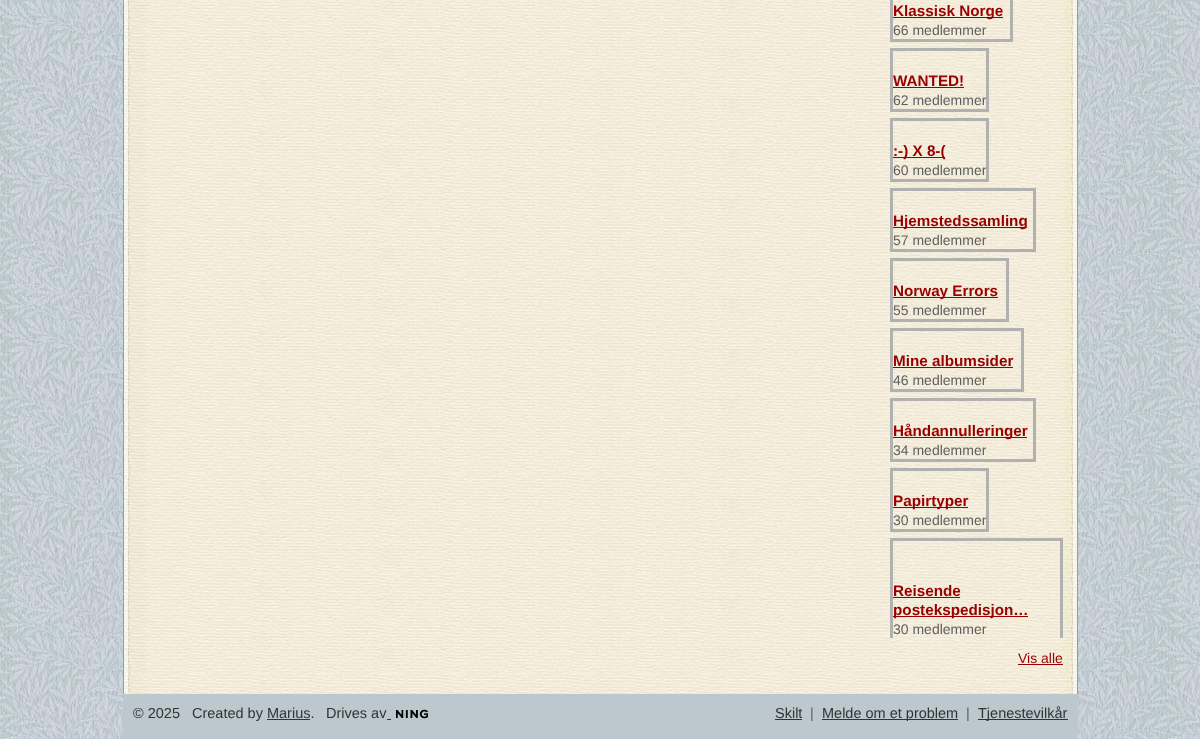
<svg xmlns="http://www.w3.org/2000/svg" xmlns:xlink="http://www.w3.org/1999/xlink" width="1200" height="739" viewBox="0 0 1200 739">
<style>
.cls-1{font:bold 15.25px Liberation Sans;fill:#990000}
.cls-2{font:14px Liberation Sans;fill:#5f5f5f}
.cls-3{font:14px Liberation Sans;fill:#990000}
.cls-4{font:14.5px Liberation Sans;fill:#333333}
.cls-5{font:14.5px Liberation Sans;fill:#5f5f5f}
</style>
<rect width="100%" height="100%" fill="#ffffff"/>
<image xlink:href="image0.png" x="0" y="0" width="1200" height="739"/>
<image xlink:href="image1.png" x="123" y="0" width="955" height="694"/>
<rect fill="none" stroke="#b1b1b1" stroke-width="3" x="891.5" y="-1.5" width="120" height="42"/>
<rect fill="#990000" x="893" y="17" width="110" height="1"/>
<rect fill="none" stroke="#b1b1b1" stroke-width="3" x="891.5" y="49.5" width="96" height="61"/>
<rect fill="#990000" x="893" y="87" width="71" height="1"/>
<rect fill="none" stroke="#b1b1b1" stroke-width="3" x="891.5" y="119.5" width="96" height="61"/>
<rect fill="#990000" x="893" y="157" width="52" height="1"/>
<rect fill="none" stroke="#b1b1b1" stroke-width="3" x="891.5" y="189.5" width="143" height="61"/>
<rect fill="#990000" x="893" y="227" width="134" height="1"/>
<rect fill="none" stroke="#b1b1b1" stroke-width="3" x="891.5" y="259.5" width="116" height="61"/>
<rect fill="#990000" x="893" y="297" width="105" height="1"/>
<rect fill="none" stroke="#b1b1b1" stroke-width="3" x="891.5" y="329.5" width="131" height="61"/>
<rect fill="#990000" x="893" y="367" width="120" height="1"/>
<rect fill="none" stroke="#b1b1b1" stroke-width="3" x="891.5" y="399.5" width="143" height="61"/>
<rect fill="#990000" x="893" y="437" width="134" height="1"/>
<rect fill="none" stroke="#b1b1b1" stroke-width="3" x="891.5" y="469.5" width="96" height="61"/>
<rect fill="#990000" x="893" y="507" width="75" height="1"/>
<rect fill="#b1b1b1" x="890" y="538" width="173" height="3"/>
<rect fill="#b1b1b1" x="1060" y="538" width="3" height="100"/>
<rect fill="#b1b1b1" x="890" y="538" width="3" height="100"/>
<rect fill="#990000" x="893" y="597" width="67" height="1"/>
<rect fill="#990000" x="893" y="616" width="135" height="1"/>
<rect fill="#990000" x="1018" y="664" width="45" height="1"/>
<rect fill="#bcc8cd" x="123" y="694" width="955" height="45"/>
<image xlink:href="image2.png" x="396" y="709" width="32" height="10"/>
<rect fill="#333333" x="267" y="719" width="43" height="1"/>
<rect fill="#333333" x="387" y="719" width="4" height="1"/>
<rect fill="#333333" x="775" y="719" width="27" height="1"/>
<rect fill="#333333" x="822" y="719" width="136" height="1"/>
<rect fill="#333333" x="978" y="719" width="90" height="1"/>
<text class="cls-1" x="893" y="16">Klassisk Norge</text>
<text class="cls-2" x="893" y="35">66 medlemmer</text>
<text class="cls-1" x="893" y="86">WANTED!</text>
<text class="cls-2" x="893" y="105">62 medlemmer</text>
<text class="cls-1" x="893" y="156">:-) X 8-(</text>
<text class="cls-2" x="893" y="175">60 medlemmer</text>
<text class="cls-1" x="893" y="226">Hjemstedssamling</text>
<text class="cls-2" x="893" y="245">57 medlemmer</text>
<text class="cls-1" x="893" y="296">Norway Errors</text>
<text class="cls-2" x="893" y="315">55 medlemmer</text>
<text class="cls-1" x="893" y="366">Mine albumsider</text>
<text class="cls-2" x="893" y="385">46 medlemmer</text>
<text class="cls-1" x="893" y="436">Håndannulleringer</text>
<text class="cls-2" x="893" y="455">34 medlemmer</text>
<text class="cls-1" x="893" y="506">Papirtyper</text>
<text class="cls-2" x="893" y="525">30 medlemmer</text>
<text class="cls-1"><tspan x="893" y="596">Reisende</tspan><tspan x="893" y="615">postekspedisjon…</tspan></text>
<text class="cls-2" x="893" y="634">30 medlemmer</text>
<text class="cls-3" x="1018" y="663">Vis alle</text>
<text class="cls-4" x="133" y="718">© 2025</text>
<text class="cls-4" x="192" y="718">Created by Marius.</text>
<text class="cls-4" x="326" y="718">Drives av</text>
<text class="cls-4" x="775" y="718">Skilt</text>
<text class="cls-5" x="810" y="718">|</text>
<text class="cls-4" x="822" y="718">Melde om et problem</text>
<text class="cls-5" x="966" y="718">|</text>
<text class="cls-4" x="978" y="718">Tjenestevilkår</text>
</svg>
